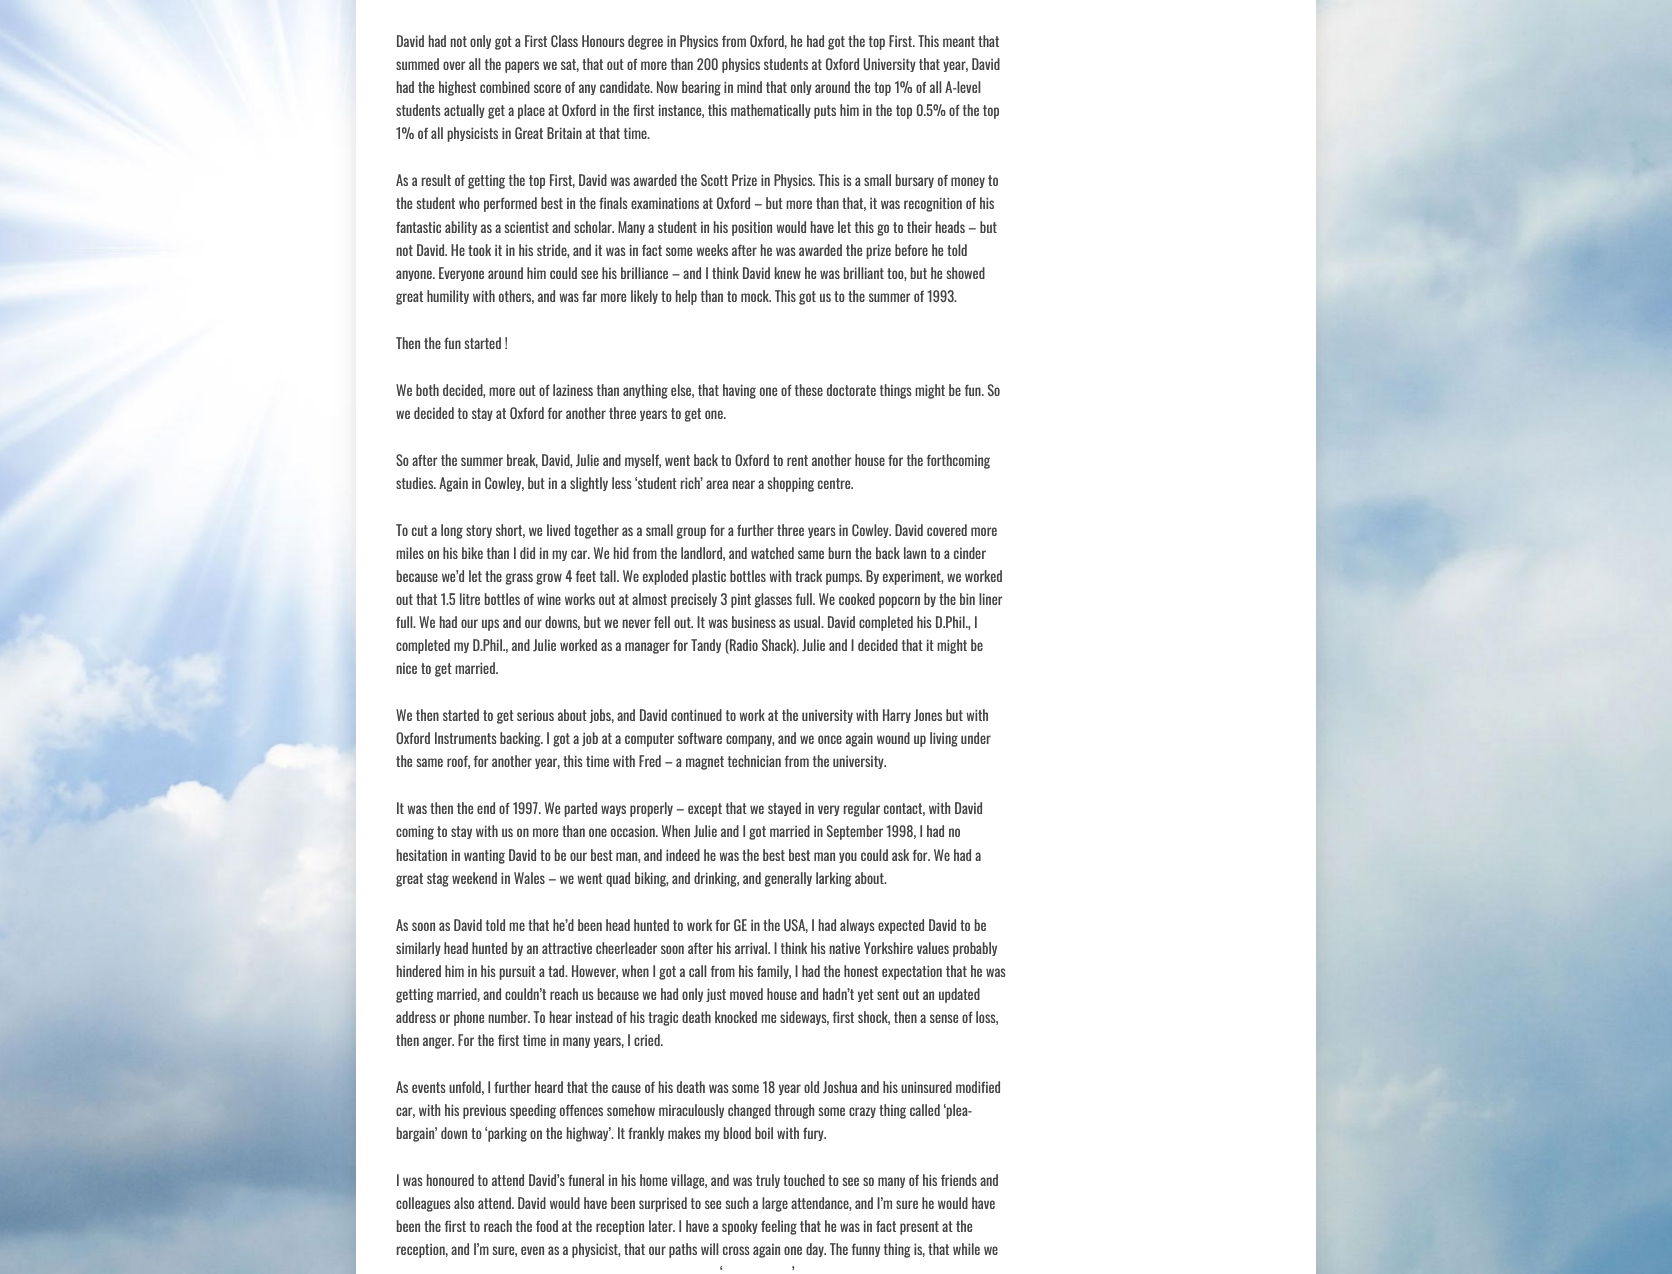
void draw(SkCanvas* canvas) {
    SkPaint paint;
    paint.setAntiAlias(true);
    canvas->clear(0xFFFFFFFF);
    canvas->drawImageRect(SkImages::DeferredFromEncodedData(SkData::MakeFromFileName("img1.png")), SkRect::MakeXYWH(0, 0, 1672, 1274), SkSamplingOptions());
    paint.setColor(0x1F000000);
    paint.setMaskFilter(SkMaskFilter::MakeBlur(kNormal_SkBlurStyle, 10));
    canvas->drawRoundRect(SkRect::MakeXYWH(356, -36, 960, 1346), 6, 6, paint);
    paint.setMaskFilter(nullptr);
    paint.setColor(0xFFFFFFFF);
    canvas->drawRect(SkRect::MakeXYWH(356, 0, 960, 1274), paint);
    SkFont font1(fontMgr->matchFamilyStyle("Oswald", SkFontStyle::Normal()), 14.4f);
    font1.setSubpixel(true);
    paint.setColor(0xFF444444);
    canvas->drawString("David had not only got a First Class Honours degree in Physics from Oxford, he had got the top First. This meant that", 396, 47, font1, paint);
    canvas->drawString("summed over all the papers we sat, that out of more than 200 physics students at Oxford University that year, David", 396, 70, font1, paint);
    canvas->drawString("had the highest combined score of any candidate. Now bearing in mind that only around the top 1% of all A-level", 396, 93, font1, paint);
    canvas->drawString("students actually get a place at Oxford in the first instance, this mathematically puts him in the top 0.5% of the top", 396, 116, font1, paint);
    canvas->drawString("1% of all physicists in Great Britain at that time.", 396, 139, font1, paint);
    canvas->drawString("As a result of getting the top First, David was awarded the Scott Prize in Physics. This is a small bursary of money to", 396, 186, font1, paint);
    canvas->drawString("the student who performed best in the finals examinations at Oxford – but more than that, it was recognition of his", 396, 209, font1, paint);
    canvas->drawString("fantastic ability as a scientist and scholar. Many a student in his position would have let this go to their heads – but", 396, 233, font1, paint);
    canvas->drawString("not David. He took it in his stride, and it was in fact some weeks after he was awarded the prize before he told", 396, 256, font1, paint);
    canvas->drawString("anyone. Everyone around him could see his brilliance – and I think David knew he was brilliant too, but he showed", 396, 279, font1, paint);
    canvas->drawString("great humility with others, and was far more likely to help than to mock. This got us to the summer of 1993.", 396, 302, font1, paint);
    canvas->drawString("Then the fun started !", 396, 349, font1, paint);
    canvas->drawString("We both decided, more out of laziness than anything else, that having one of these doctorate things might be fun. So", 396, 396, font1, paint);
    canvas->drawString("we decided to stay at Oxford for another three years to get one.", 396, 419, font1, paint);
    canvas->drawString("So after the summer break, David, Julie and myself, went back to Oxford to rent another house for the forthcoming", 396, 466, font1, paint);
    canvas->drawString("studies. Again in Cowley, but in a slightly less ‘student rich’ area near a shopping centre.", 396, 489, font1, paint);
    canvas->drawString("To cut a long story short, we lived together as a small group for a further three years in Cowley. David covered more", 396, 536, font1, paint);
    canvas->drawString("miles on his bike than I did in my car. We hid from the landlord, and watched same burn the back lawn to a cinder", 396, 559, font1, paint);
    canvas->drawString("because we’d let the grass grow 4 feet tall. We exploded plastic bottles with track pumps. By experiment, we worked", 396, 582, font1, paint);
    canvas->drawString("out that 1.5 litre bottles of wine works out at almost precisely 3 pint glasses full. We cooked popcorn by the bin liner", 396, 605, font1, paint);
    canvas->drawString("full. We had our ups and our downs, but we never fell out. It was business as usual. David completed his D.Phil., I", 396, 628, font1, paint);
    canvas->drawString("completed my D.Phil., and Julie worked as a manager for Tandy (Radio Shack). Julie and I decided that it might be", 396, 651, font1, paint);
    canvas->drawString("nice to get married.", 396, 674, font1, paint);
    canvas->drawString("We then started to get serious about jobs, and David continued to work at the university with Harry Jones but with", 396, 721, font1, paint);
    canvas->drawString("Oxford Instruments backing. I got a job at a computer software company, and we once again wound up living under", 396, 744, font1, paint);
    canvas->drawString("the same roof, for another year, this time with Fred – a magnet technician from the university.", 396, 767, font1, paint);
    canvas->drawString("It was then the end of 1997. We parted ways properly – except that we stayed in very regular contact, with David", 396, 814, font1, paint);
    canvas->drawString("coming to stay with us on more than one occasion. When Julie and I got married in September 1998, I had no", 396, 837, font1, paint);
    canvas->drawString("hesitation in wanting David to be our best man, and indeed he was the best best man you could ask for. We had a", 396, 861, font1, paint);
    canvas->drawString("great stag weekend in Wales – we went quad biking, and drinking, and generally larking about.", 396, 884, font1, paint);
    canvas->drawString("As soon as David told me that he’d been head hunted to work for GE in the USA, I had always expected David to be", 396, 931, font1, paint);
    canvas->drawString("similarly head hunted by an attractive cheerleader soon after his arrival. I think his native Yorkshire values probably", 396, 954, font1, paint);
    canvas->drawString("hindered him in his pursuit a tad. However, when I got a call from his family, I had the honest expectation that he was", 396, 977, font1, paint);
    canvas->drawString("getting married, and couldn’t reach us because we had only just moved house and hadn’t yet sent out an updated", 396, 1000, font1, paint);
    canvas->drawString("address or phone number. To hear instead of his tragic death knocked me sideways, first shock, then a sense of loss,", 396, 1023, font1, paint);
    canvas->drawString("then anger. For the first time in many years, I cried.", 396, 1046, font1, paint);
    canvas->drawString("As events unfold, I further heard that the cause of his death was some 18 year old Joshua and his uninsured modified", 396, 1093, font1, paint);
    canvas->drawString("car, with his previous speeding offences somehow miraculously changed through some crazy thing called ‘plea-", 396, 1116, font1, paint);
    canvas->drawString("bargain’ down to ‘parking on the highway’. It frankly makes my blood boil with fury.", 396, 1139, font1, paint);
    canvas->drawString("I was honoured to attend David’s funeral in his home village, and was truly touched to see so many of his friends and", 396, 1186, font1, paint);
    canvas->drawString("colleagues also attend. David would have been surprised to see such a large attendance, and I’m sure he would have", 396, 1209, font1, paint);
    canvas->drawString("been the first to reach the food at the reception later. I have a spooky feeling that he was in fact present at the", 396, 1232, font1, paint);
    canvas->drawString("reception, and I’m sure, even as a physicist, that our paths will cross again one day. The funny thing is, that while we", 396, 1255, font1, paint);
    canvas->drawString("‘", 720, 1278, font1, paint);
    canvas->drawString("’", 792, 1278, font1, paint);
}
